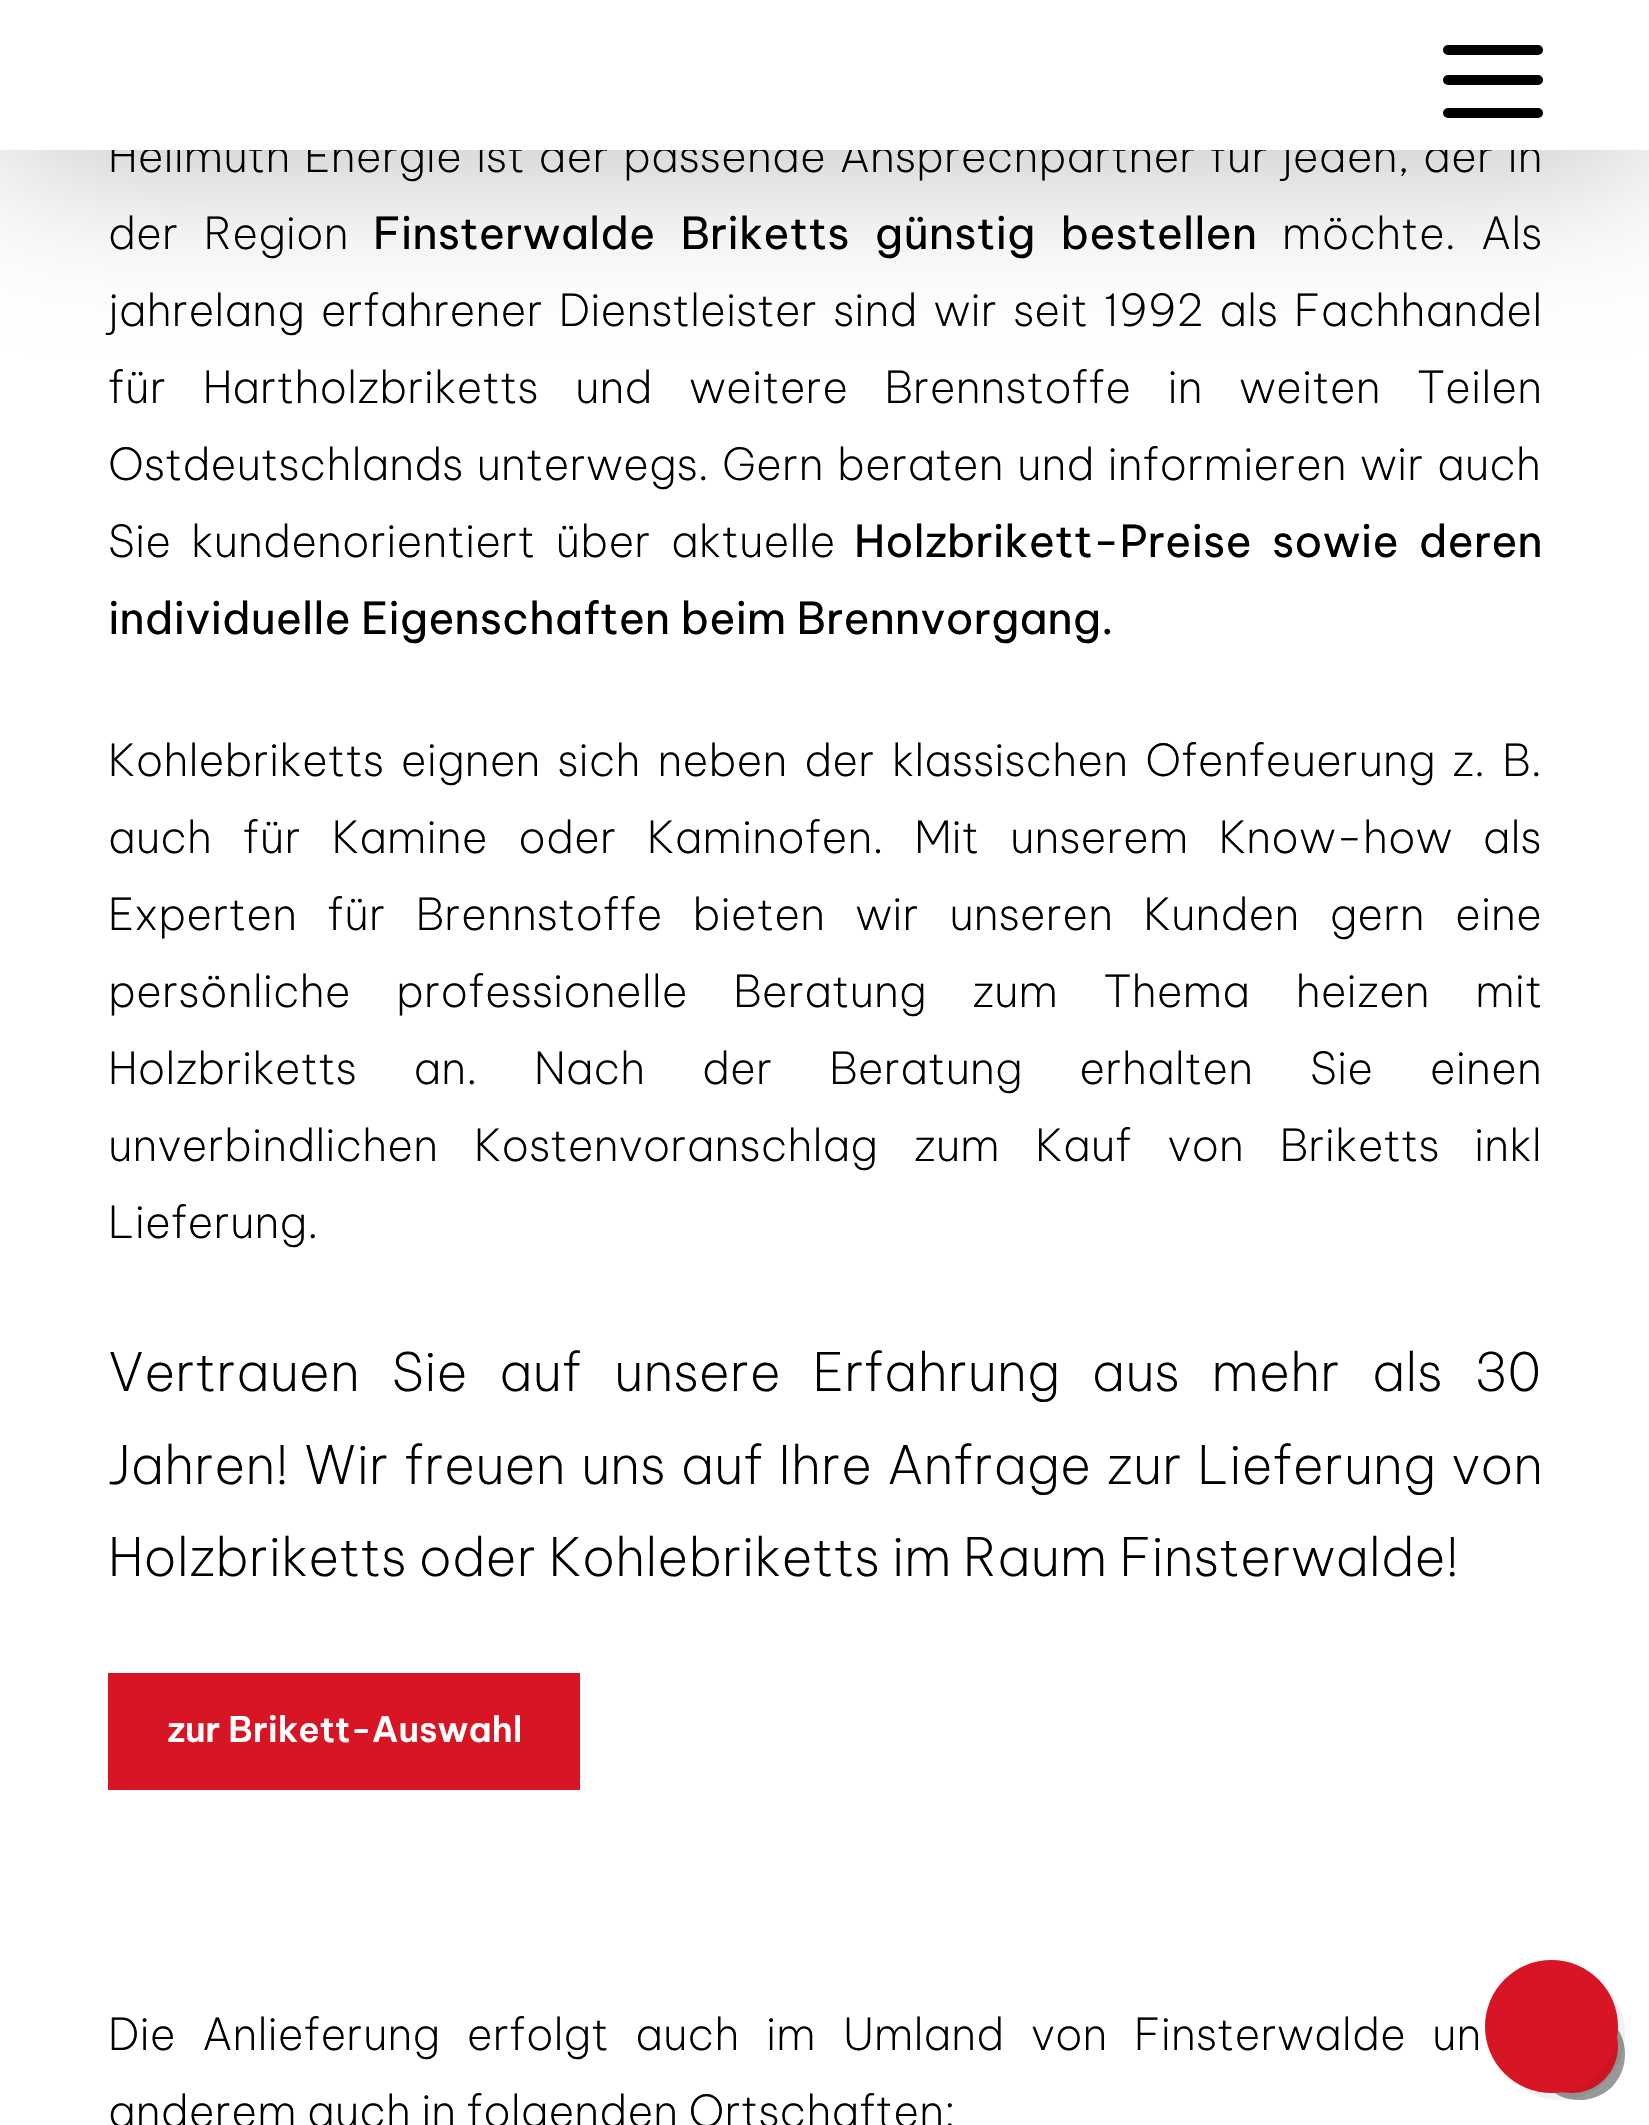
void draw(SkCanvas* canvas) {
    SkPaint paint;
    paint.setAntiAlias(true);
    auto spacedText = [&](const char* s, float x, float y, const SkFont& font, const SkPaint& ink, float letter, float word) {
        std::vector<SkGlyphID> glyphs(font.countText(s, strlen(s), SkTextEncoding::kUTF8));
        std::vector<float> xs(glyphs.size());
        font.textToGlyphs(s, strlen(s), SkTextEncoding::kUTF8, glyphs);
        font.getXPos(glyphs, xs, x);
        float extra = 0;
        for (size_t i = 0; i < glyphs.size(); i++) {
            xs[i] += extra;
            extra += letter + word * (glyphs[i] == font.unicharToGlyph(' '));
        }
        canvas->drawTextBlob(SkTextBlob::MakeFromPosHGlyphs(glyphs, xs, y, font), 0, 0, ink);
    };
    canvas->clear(0xFFFFFFFF);
    paint.setColor(0x4D000000);
    paint.setMaskFilter(SkMaskFilter::MakeBlur(kNormal_SkBlurStyle, 87.5f));
    canvas->drawRect(SkRect::MakeXYWH(0, 0, 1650, 150), paint);
    paint.setMaskFilter(nullptr);
    SkFont font1(fontMgr->matchFamilyStyle("Be Vietnam Pro", SkFontStyle(200, SkFontStyle::kNormal_Width, SkFontStyle::kUpright_Slant)), 44);
    font1.setSubpixel(true);
    paint.setColor(0xFF000000);
    spacedText("Hellmuth Energie ist der", 108, 172, font1, paint, 0, 3.75f);
    spacedText("passende Ansprechpartner für jeden, der in", 623, 172, font1, paint, 0, 3.75f);
    paint.setColor(0xFFFFFFFF);
    canvas->drawRect(SkRect::MakeXYWH(0, 0, 1649, 150), paint);
    paint.setColor(0xFF000000);
    canvas->drawRoundRect(SkRect::MakeXYWH(1443, 45, 100, 10), 5, 5, paint);
    canvas->drawRoundRect(SkRect::MakeXYWH(1443, 75, 100, 10), 5, 5, paint);
    canvas->drawRoundRect(SkRect::MakeXYWH(1443, 108, 100, 10), 5, 5, paint);
    spacedText("der Region", 108, 249, font1, paint, 0, 15);
    SkFont font2(fontMgr->matchFamilyStyle("Be Vietnam Pro", SkFontStyle::Normal()), 44);
    font2.setSubpixel(true);
    spacedText("Finsterwalde Briketts günstig bestellen", 373, 249, font2, paint, 0, 15);
    spacedText("möchte. Als", 1282, 249, font1, paint, 0, 15);
    spacedText("jahrelang erfahrener Dienstleister sind wir seit 1992 als Fachhandel", 108, 326, font1, paint, 0, 5.75f);
    spacedText("für Hartholzbriketts und weitere Brennstoffe in weiten Teilen", 108, 403, font1, paint, 0, 26.25f);
    spacedText("Ostdeutschlands unterwegs. Gern", 108, 480, font1, paint, 0, 3);
    spacedText("beraten und informieren wir auch", 837, 480, font1, paint, 0, 3);
    canvas->drawString("Sie", 108, 557, font1, paint);
    spacedText("kundenorientiert über aktuelle", 191, 557, font1, paint, 0, 10);
    spacedText("Holzbrikett-Preise sowie deren", 854, 557, font2, paint, 0, 10);
    canvas->drawString("individuelle Eigenschaften beim Brennvorgang.", 108, 634, font2, paint);
    spacedText("Kohlebriketts eignen sich neben der klassischen Ofenfeuerung", 108, 776, font1, paint, 0, 6.75f);
    spacedText("z. B.", 1452, 776, font1, paint, 0, 7);
    spacedText("auch für Kamine oder Kaminofen. Mit", 108, 853, font1, paint, 0, 20.5f);
    spacedText("unserem Know-how als", 1010, 853, font1, paint, 0, 20);
    spacedText("Experten für Brennstoffe bieten wir unseren Kunden gern eine", 108, 930, font1, paint, 0, 20);
    canvas->drawString("persönliche", 108, 1007, font1, paint);
    spacedText("professionelle Beratung zum Thema heizen mit", 396, 1007, font1, paint, 0, 35.25f);
    spacedText("Holzbriketts an. Nach der Beratung erhalten Sie einen", 108, 1084, font1, paint, 0, 46.5f);
    spacedText("unverbindlichen Kostenvoranschlag zum Kauf von Briketts", 108, 1161, font1, paint, 0, 25.5f);
    canvas->drawString("inkl", 1474, 1161, font1, paint);
    canvas->drawString("Lieferung.", 108, 1238, font1, paint);
    SkFont font3(fontMgr->matchFamilyStyle("Be Vietnam Pro", SkFontStyle(200, SkFontStyle::kNormal_Width, SkFontStyle::kUpright_Slant)), 52.8f);
    font3.setSubpixel(true);
    spacedText("Vertrauen Sie auf", 108, 1391, font3, paint, 0, 19.5f);
    spacedText("unsere Erfahrung aus mehr als 30", 614, 1391, font3, paint, 0, 19.5f);
    spacedText("Jahren! Wir freuen uns auf Ihre Anfrage zur Lieferung von", 108, 1484, font3, paint, 0, 3);
    canvas->drawString("Holzbriketts oder Kohlebriketts im", 108, 1576, font3, paint);
    canvas->drawString("Raum Finsterwalde!", 963, 1576, font3, paint);
    paint.setColor(0xFFD81525);
    canvas->drawRect(SkRect::MakeXYWH(108, 1673, 472, 117), paint);
    SkFont font4(fontMgr->matchFamilyStyle("Be Vietnam Pro", SkFontStyle(600, SkFontStyle::kNormal_Width, SkFontStyle::kUpright_Slant)), 35.25f);
    font4.setSubpixel(true);
    paint.setColor(0xFFFFFFFF);
    canvas->drawString("zur Brikett-Auswahl", 167, 1742, font4, paint);
    paint.setColor(0xFF000000);
    spacedText("Die Anlieferung erfolgt auch im", 108, 2050, font1, paint, 0, 16.5f);
    spacedText("Umland von Finsterwalde", 843, 2050, font1, paint, 0, 16.5f);
    canvas->drawString("un", 1432, 2050, font1, paint);
    canvas->drawString("anderem auch in folgenden Ortschaften:", 108, 2127, font1, paint);
    paint.setColor(0xFF999999);
    canvas->drawPath(SkPathBuilder().moveTo(1543, 2083).cubicTo(1560, 2104, 1592, 2106, 1612, 2087).cubicTo(1631, 2067, 1629, 2035, 1608, 2018).cubicTo(1622, 2037, 1620, 2063, 1604, 2079).cubicTo(1588, 2095, 1562, 2097, 1543, 2083).close().detach(), paint);
    paint.setColor(0xFFD81525);
    canvas->drawCircle(1571.5f, 2046.5f, 46.5f, paint);
    paint.setColor(0x0D000000);
    canvas->drawPath(SkPathBuilder().moveTo(1510, 2078).cubicTo(1535, 2106, 1579, 2108, 1606, 2081).cubicTo(1633, 2054, 1631, 2010, 1603, 1985).cubicTo(1624, 2010, 1622, 2049, 1598, 2073).cubicTo(1574, 2097, 1535, 2099, 1510, 2078).close().detach(), paint);
    paint.setColor(0xFFD81525);
    canvas->drawCircle(1551.5f, 2026.5f, 66.5f, paint);
}
